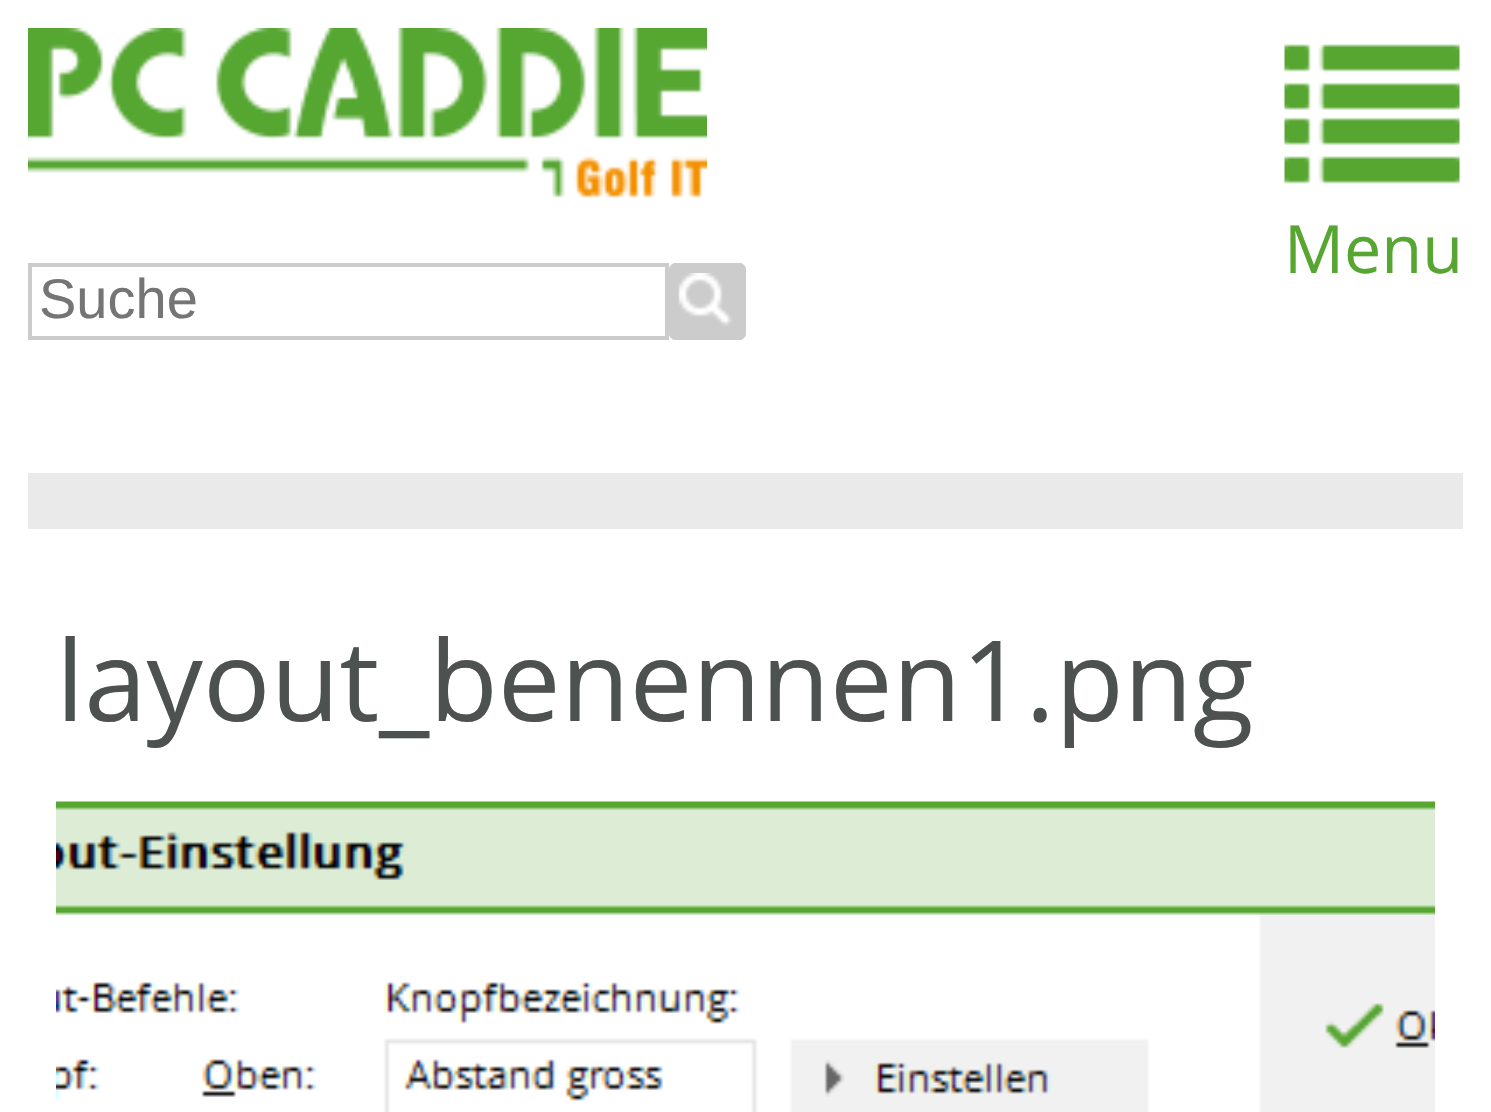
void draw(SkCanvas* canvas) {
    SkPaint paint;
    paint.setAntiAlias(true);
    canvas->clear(0xFFFFFFFF);
    canvas->drawImageRect(SkImages::DeferredFromEncodedData(SkData::MakeFromFileName("img1.png")), SkRect::MakeXYWH(28, 28, 679, 170), SkSamplingOptions());
    canvas->drawImageRect(SkImages::DeferredFromEncodedData(SkData::MakeFromFileName("img2.png")), SkRect::MakeXYWH(1284, 44, 176, 140), SkSamplingOptions());
    SkFont font1(fontMgr->matchFamilyStyle("Open Sans", SkFontStyle::Normal()), 66.5f);
    font1.setSubpixel(true);
    paint.setColor(0xFF57A632);
    canvas->drawString("Menu", 1284, 273, font1, paint);
    paint.setStyle(SkPaint::kStroke_Style);
    paint.setStrokeWidth(4);
    paint.setColor(0xFFCCCCCC);
    canvas->drawRect(SkRect::MakeXYWH(30, 265, 637, 73), paint);
    SkFont font2(fontMgr->matchFamilyStyle("Liberation Sans", SkFontStyle::Normal()), 56);
    font2.setSubpixel(true);
    paint.setStyle(SkPaint::kFill_Style);
    paint.setColor(0xFF757575);
    canvas->drawString("Suche", 39, 318, font2, paint);
    paint.setColor(0xFFCCCCCC);
    canvas->drawRoundRect(SkRect::MakeXYWH(669, 263, 77, 77), 7, 7, paint);
    canvas->drawImageRect(SkImages::DeferredFromEncodedData(SkData::MakeFromFileName("img3.png")), SkRect::MakeXYWH(678, 273, 54, 53), SkSamplingOptions());
    paint.setStyle(SkPaint::kStroke_Style);
    canvas->drawRoundRect(SkRect::MakeXYWH(671, 265, 73, 73), 5, 5, paint);
    paint.setStyle(SkPaint::kFill_Style);
    paint.setColor(0xFFEAEAEA);
    canvas->drawRect(SkRect::MakeXYWH(28, 473, 1435, 56), paint);
    SkFont font3(fontMgr->matchFamilyStyle("Open Sans", SkFontStyle::Normal()), 112);
    font3.setSubpixel(true);
    paint.setColor(0xFF4D514F);
    canvas->drawString("layout_benennen1.png", 56, 721, font3, paint);
    canvas->drawImageRect(SkImages::DeferredFromEncodedData(SkData::MakeFromFileName("img4.png")), SkRect::MakeXYWH(56, 801, 1379, 311), SkSamplingOptions());
}
